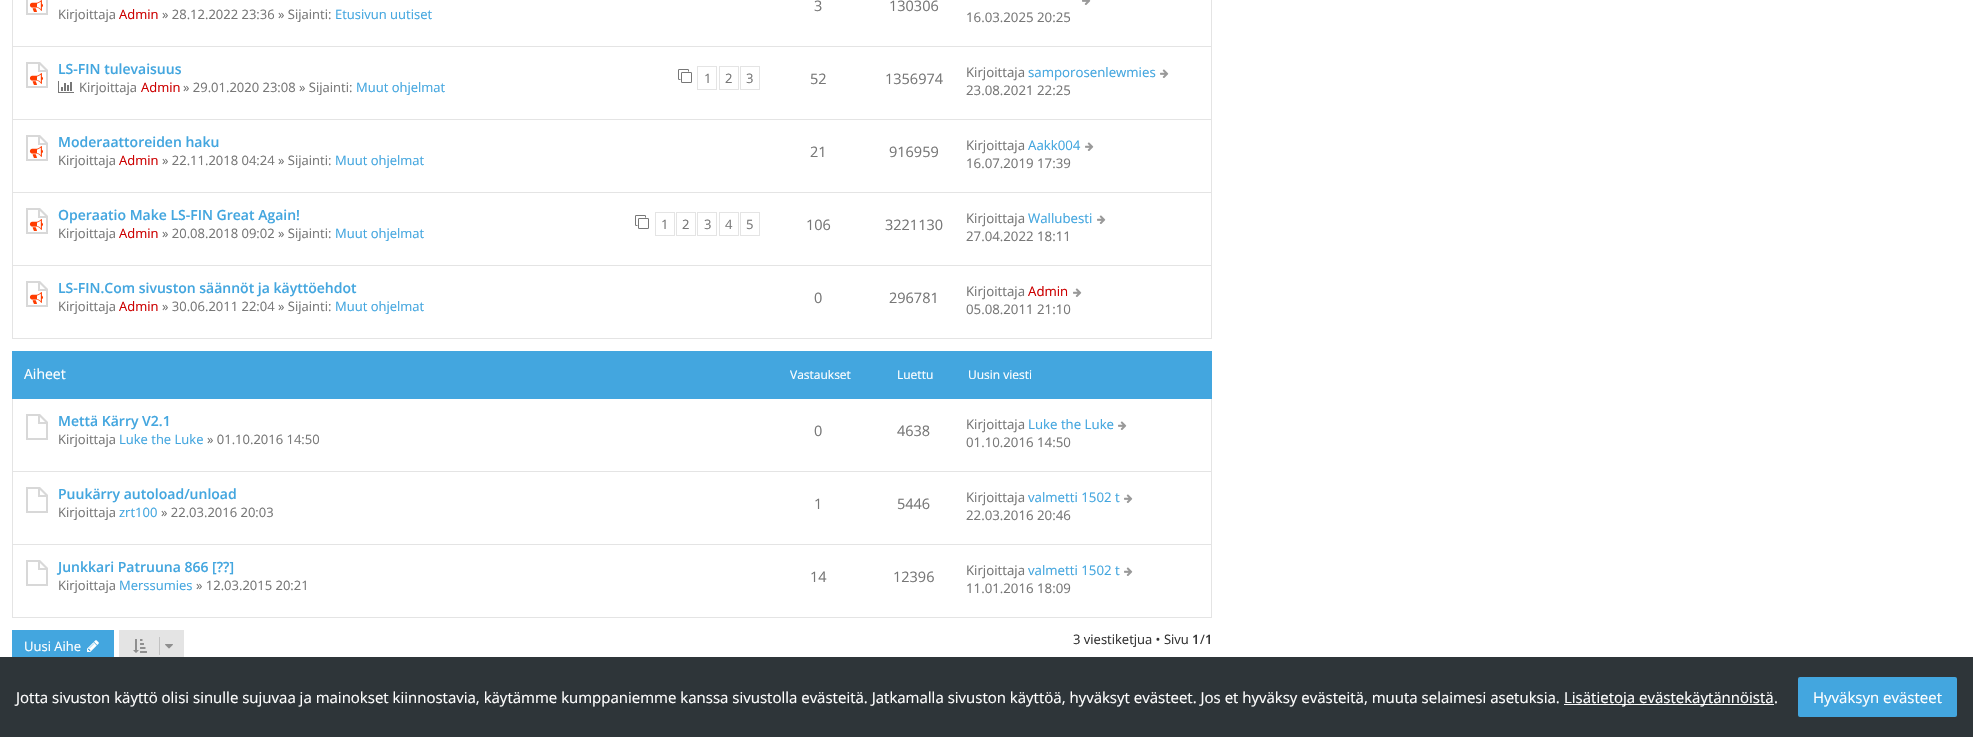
void draw(SkCanvas* canvas) {
    SkPaint paint;
    paint.setAntiAlias(true);
    canvas->clear(0xFFFFFFFF);
    paint.setColor(0xFFE4E4E4);
    canvas->drawRect(SkRect::MakeXYWH(1211, 0, 1, 339), paint);
    canvas->drawRect(SkRect::MakeXYWH(12, 46, 1200, 1), paint);
    canvas->drawRect(SkRect::MakeXYWH(12, 0, 1, 47), paint);
    canvas->drawImageRect(SkImages::DeferredFromEncodedData(SkData::MakeFromFileName("img1.png")), SkRect::MakeXYWH(26, 0, 22, 15), SkSamplingOptions());
    SkFont font1(fontMgr->matchFamilyStyle("Open Sans", SkFontStyle::Normal()), 14.5f);
    font1.setSubpixel(true);
    paint.setColor(0xFF777777);
    canvas->drawString("3", 814, 11, font1, paint);
    canvas->drawString("130306", 889, 11, font1, paint);
    SkFont font2(fontMgr->matchFamilyStyle("Open Sans", SkFontStyle::Normal()), 13);
    font2.setSubpixel(true);
    canvas->drawString("Kirjoittaja", 58, 19, font2, paint);
    paint.setColor(0xFFCC0000);
    canvas->drawString("Admin", 119, 19, font2, paint);
    paint.setColor(0xFF777777);
    canvas->drawString("» 28.12.2022 23:36 » Sijainti:", 162, 19, font2, paint);
    paint.setColor(0xFF43A6DF);
    canvas->drawString("Etusivun uutiset", 335, 19, font2, paint);
    canvas->drawImageRect(SkImages::DeferredFromEncodedData(SkData::MakeFromFileName("img2.png")), SkRect::MakeXYWH(1082, 0, 9, 5), SkSamplingOptions());
    SkFont font3(fontMgr->matchFamilyStyle("Open Sans", SkFontStyle::Normal()), 13.25f);
    font3.setSubpixel(true);
    paint.setColor(0xFF777777);
    canvas->drawString("16.03.2025 20:25", 966, 22, font3, paint);
    paint.setColor(0xFFE4E4E4);
    canvas->drawRect(SkRect::MakeXYWH(12, 119, 1200, 1), paint);
    canvas->drawRect(SkRect::MakeXYWH(12, 47, 1, 73), paint);
    canvas->drawImageRect(SkImages::DeferredFromEncodedData(SkData::MakeFromFileName("img3.png")), SkRect::MakeXYWH(26, 62, 22, 26), SkSamplingOptions());
    SkFont font4(fontMgr->matchFamilyStyle("Open Sans", SkFontStyle(600, SkFontStyle::kNormal_Width, SkFontStyle::kUpright_Slant)), 14);
    font4.setSubpixel(true);
    paint.setColor(0xFF43A6DF);
    canvas->drawString("LS-FIN tulevaisuus", 58, 74, font4, paint);
    canvas->drawImageRect(SkImages::DeferredFromEncodedData(SkData::MakeFromFileName("img4.png")), SkRect::MakeXYWH(678, 69, 14, 14), SkSamplingOptions());
    paint.setStyle(SkPaint::kStroke_Style);
    paint.setStrokeWidth(1);
    paint.setColor(0xFFE4E4E4);
    canvas->drawRect(SkRect::MakeXYWH(697.5f, 66.5f, 19, 23), paint);
    paint.setStyle(SkPaint::kFill_Style);
    paint.setColor(0xFF777777);
    canvas->drawString("1", 704, 83, font2, paint);
    paint.setStyle(SkPaint::kStroke_Style);
    paint.setColor(0xFFE4E4E4);
    canvas->drawRect(SkRect::MakeXYWH(719.5f, 66.5f, 19, 23), paint);
    paint.setStyle(SkPaint::kFill_Style);
    paint.setColor(0xFF777777);
    canvas->drawString("2", 725, 83, font2, paint);
    paint.setStyle(SkPaint::kStroke_Style);
    paint.setColor(0xFFE4E4E4);
    canvas->drawRect(SkRect::MakeXYWH(740.5f, 66.5f, 19, 23), paint);
    paint.setStyle(SkPaint::kFill_Style);
    paint.setColor(0xFF777777);
    canvas->drawString("3", 746, 83, font2, paint);
    canvas->drawImageRect(SkImages::DeferredFromEncodedData(SkData::MakeFromFileName("img5.png")), SkRect::MakeXYWH(58, 81, 16, 12), SkSamplingOptions());
    canvas->drawString("Kirjoittaja", 79, 92, font2, paint);
    paint.setColor(0xFFCC0000);
    canvas->drawString("Admin", 141, 92, font2, paint);
    paint.setColor(0xFF777777);
    canvas->drawString("» 29.01.2020 23:08 » Sijainti:", 183, 92, font2, paint);
    paint.setColor(0xFF43A6DF);
    canvas->drawString("Muut ohjelmat", 356, 92, font2, paint);
    paint.setColor(0xFF777777);
    canvas->drawString("52", 810, 84, font1, paint);
    canvas->drawString("1356974", 885, 84, font1, paint);
    canvas->drawString("Kirjoittaja", 966, 77, font3, paint);
    paint.setColor(0xFF43A6DF);
    canvas->drawString("samporosenlewmies", 1028, 77, font3, paint);
    canvas->drawImageRect(SkImages::DeferredFromEncodedData(SkData::MakeFromFileName("img6.png")), SkRect::MakeXYWH(1160, 69, 9, 9), SkSamplingOptions());
    paint.setColor(0xFF777777);
    canvas->drawString("23.08.2021 22:25", 966, 95, font3, paint);
    paint.setColor(0xFFE4E4E4);
    canvas->drawRect(SkRect::MakeXYWH(12, 192, 1200, 1), paint);
    canvas->drawRect(SkRect::MakeXYWH(12, 120, 1, 73), paint);
    canvas->drawImageRect(SkImages::DeferredFromEncodedData(SkData::MakeFromFileName("img3.png")), SkRect::MakeXYWH(26, 135, 22, 26), SkSamplingOptions());
    paint.setColor(0xFF43A6DF);
    canvas->drawString("Moderaattoreiden haku", 58, 147, font4, paint);
    paint.setColor(0xFF777777);
    canvas->drawString("Kirjoittaja", 58, 165, font2, paint);
    paint.setColor(0xFFCC0000);
    canvas->drawString("Admin", 119, 165, font2, paint);
    paint.setColor(0xFF777777);
    canvas->drawString("» 22.11.2018 04:24 » Sijainti:", 162, 165, font2, paint);
    paint.setColor(0xFF43A6DF);
    canvas->drawString("Muut ohjelmat", 335, 165, font2, paint);
    paint.setColor(0xFF777777);
    canvas->drawString("21", 810, 157, font1, paint);
    canvas->drawString("916959", 889, 157, font1, paint);
    canvas->drawString("Kirjoittaja", 966, 150, font3, paint);
    paint.setColor(0xFF43A6DF);
    canvas->drawString("Aakk004", 1028, 150, font3, paint);
    canvas->drawImageRect(SkImages::DeferredFromEncodedData(SkData::MakeFromFileName("img6.png")), SkRect::MakeXYWH(1085, 142, 9, 9), SkSamplingOptions());
    paint.setColor(0xFF777777);
    canvas->drawString("16.07.2019 17:39", 966, 168, font3, paint);
    paint.setColor(0xFFE4E4E4);
    canvas->drawRect(SkRect::MakeXYWH(12, 265, 1200, 1), paint);
    canvas->drawRect(SkRect::MakeXYWH(12, 193, 1, 73), paint);
    canvas->drawImageRect(SkImages::DeferredFromEncodedData(SkData::MakeFromFileName("img3.png")), SkRect::MakeXYWH(26, 208, 22, 26), SkSamplingOptions());
    paint.setColor(0xFF43A6DF);
    canvas->drawString("Operaatio Make LS-FIN Great Again!", 58, 220, font4, paint);
    canvas->drawImageRect(SkImages::DeferredFromEncodedData(SkData::MakeFromFileName("img4.png")), SkRect::MakeXYWH(635, 215, 14, 14), SkSamplingOptions());
    paint.setStyle(SkPaint::kStroke_Style);
    paint.setColor(0xFFE4E4E4);
    canvas->drawRect(SkRect::MakeXYWH(655.5f, 212.5f, 19, 23), paint);
    paint.setStyle(SkPaint::kFill_Style);
    paint.setColor(0xFF777777);
    canvas->drawString("1", 661, 229, font2, paint);
    paint.setStyle(SkPaint::kStroke_Style);
    paint.setColor(0xFFE4E4E4);
    canvas->drawRect(SkRect::MakeXYWH(676.5f, 212.5f, 19, 23), paint);
    paint.setStyle(SkPaint::kFill_Style);
    paint.setColor(0xFF777777);
    canvas->drawString("2", 682, 229, font2, paint);
    paint.setStyle(SkPaint::kStroke_Style);
    paint.setColor(0xFFE4E4E4);
    canvas->drawRect(SkRect::MakeXYWH(697.5f, 212.5f, 19, 23), paint);
    paint.setStyle(SkPaint::kFill_Style);
    paint.setColor(0xFF777777);
    canvas->drawString("3", 704, 229, font2, paint);
    paint.setStyle(SkPaint::kStroke_Style);
    paint.setColor(0xFFE4E4E4);
    canvas->drawRect(SkRect::MakeXYWH(719.5f, 212.5f, 19, 23), paint);
    paint.setStyle(SkPaint::kFill_Style);
    paint.setColor(0xFF777777);
    canvas->drawString("4", 725, 229, font2, paint);
    paint.setStyle(SkPaint::kStroke_Style);
    paint.setColor(0xFFE4E4E4);
    canvas->drawRect(SkRect::MakeXYWH(740.5f, 212.5f, 19, 23), paint);
    paint.setStyle(SkPaint::kFill_Style);
    paint.setColor(0xFF777777);
    canvas->drawString("5", 746, 229, font2, paint);
    canvas->drawString("Kirjoittaja", 58, 238, font2, paint);
    paint.setColor(0xFFCC0000);
    canvas->drawString("Admin", 119, 238, font2, paint);
    paint.setColor(0xFF777777);
    canvas->drawString("» 20.08.2018 09:02 » Sijainti:", 162, 238, font2, paint);
    paint.setColor(0xFF43A6DF);
    canvas->drawString("Muut ohjelmat", 335, 238, font2, paint);
    paint.setColor(0xFF777777);
    canvas->drawString("106", 806, 230, font1, paint);
    canvas->drawString("3221130", 885, 230, font1, paint);
    canvas->drawString("Kirjoittaja", 966, 223, font3, paint);
    paint.setColor(0xFF43A6DF);
    canvas->drawString("Wallubesti", 1028, 223, font3, paint);
    canvas->drawImageRect(SkImages::DeferredFromEncodedData(SkData::MakeFromFileName("img6.png")), SkRect::MakeXYWH(1097, 215, 9, 9), SkSamplingOptions());
    paint.setColor(0xFF777777);
    canvas->drawString("27.04.2022 18:11", 966, 241, font3, paint);
    paint.setColor(0xFFE4E4E4);
    canvas->drawRect(SkRect::MakeXYWH(12, 338, 1200, 1), paint);
    canvas->drawRect(SkRect::MakeXYWH(12, 266, 1, 73), paint);
    canvas->drawImageRect(SkImages::DeferredFromEncodedData(SkData::MakeFromFileName("img3.png")), SkRect::MakeXYWH(26, 281, 22, 26), SkSamplingOptions());
    paint.setColor(0xFF43A6DF);
    canvas->drawString("LS-FIN.Com sivuston säännöt ja käyttöehdot", 58, 293, font4, paint);
    paint.setColor(0xFF777777);
    canvas->drawString("Kirjoittaja", 58, 311, font2, paint);
    paint.setColor(0xFFCC0000);
    canvas->drawString("Admin", 119, 311, font2, paint);
    paint.setColor(0xFF777777);
    canvas->drawString("» 30.06.2011 22:04 » Sijainti:", 162, 311, font2, paint);
    paint.setColor(0xFF43A6DF);
    canvas->drawString("Muut ohjelmat", 335, 311, font2, paint);
    paint.setColor(0xFF777777);
    canvas->drawString("0", 814, 303, font1, paint);
    canvas->drawString("296781", 889, 303, font1, paint);
    canvas->drawString("Kirjoittaja", 966, 296, font3, paint);
    paint.setColor(0xFFCC0000);
    canvas->drawString("Admin", 1028, 296, font3, paint);
    canvas->drawImageRect(SkImages::DeferredFromEncodedData(SkData::MakeFromFileName("img6.png")), SkRect::MakeXYWH(1073, 288, 9, 9), SkSamplingOptions());
    paint.setColor(0xFF777777);
    canvas->drawString("05.08.2011 21:10", 966, 314, font3, paint);
    paint.setColor(0xFF43A6DF);
    canvas->drawRect(SkRect::MakeXYWH(12, 351, 1200, 48), paint);
    SkFont font5(fontMgr->matchFamilyStyle("Open Sans", SkFontStyle::Normal()), 14);
    font5.setSubpixel(true);
    paint.setColor(0xFFFFFFFF);
    canvas->drawString("Aiheet", 24, 379, font5, paint);
    SkFont font6(fontMgr->matchFamilyStyle("Open Sans", SkFontStyle::Normal()), 12);
    font6.setSubpixel(true);
    canvas->drawString("Vastaukset", 790, 379, font6, paint);
    canvas->drawString("Luettu", 897, 379, font6, paint);
    canvas->drawString("Uusin viesti", 968, 379, font6, paint);
    paint.setColor(0xFFE4E4E4);
    canvas->drawRect(SkRect::MakeXYWH(1211, 399, 1, 219), paint);
    canvas->drawRect(SkRect::MakeXYWH(12, 471, 1200, 1), paint);
    canvas->drawRect(SkRect::MakeXYWH(12, 399, 1, 73), paint);
    canvas->drawImageRect(SkImages::DeferredFromEncodedData(SkData::MakeFromFileName("img7.png")), SkRect::MakeXYWH(26, 414, 22, 26), SkSamplingOptions());
    paint.setColor(0xFF43A6DF);
    canvas->drawString("Mettä Kärry V2.1", 58, 426, font4, paint);
    paint.setColor(0xFF777777);
    canvas->drawString("Kirjoittaja", 58, 444, font2, paint);
    paint.setColor(0xFF43A6DF);
    canvas->drawString("Luke the Luke", 119, 444, font2, paint);
    paint.setColor(0xFF777777);
    canvas->drawString("» 01.10.2016 14:50", 207, 444, font2, paint);
    canvas->drawString("0", 814, 436, font1, paint);
    canvas->drawString("4638", 897, 436, font1, paint);
    canvas->drawString("Kirjoittaja", 966, 429, font3, paint);
    paint.setColor(0xFF43A6DF);
    canvas->drawString("Luke the Luke", 1028, 429, font3, paint);
    canvas->drawImageRect(SkImages::DeferredFromEncodedData(SkData::MakeFromFileName("img6.png")), SkRect::MakeXYWH(1118, 421, 9, 9), SkSamplingOptions());
    paint.setColor(0xFF777777);
    canvas->drawString("01.10.2016 14:50", 966, 447, font3, paint);
    paint.setColor(0xFFE4E4E4);
    canvas->drawRect(SkRect::MakeXYWH(12, 544, 1200, 1), paint);
    canvas->drawRect(SkRect::MakeXYWH(12, 472, 1, 73), paint);
    canvas->drawImageRect(SkImages::DeferredFromEncodedData(SkData::MakeFromFileName("img7.png")), SkRect::MakeXYWH(26, 487, 22, 26), SkSamplingOptions());
    paint.setColor(0xFF43A6DF);
    canvas->drawString("Puukärry autoload/unload", 58, 499, font4, paint);
    paint.setColor(0xFF777777);
    canvas->drawString("Kirjoittaja", 58, 517, font2, paint);
    paint.setColor(0xFF43A6DF);
    canvas->drawString("zrt100", 119, 517, font2, paint);
    paint.setColor(0xFF777777);
    canvas->drawString("» 22.03.2016 20:03", 161, 517, font2, paint);
    canvas->drawString("1", 814, 509, font1, paint);
    canvas->drawString("5446", 897, 509, font1, paint);
    canvas->drawString("Kirjoittaja", 966, 502, font3, paint);
    paint.setColor(0xFF43A6DF);
    canvas->drawString("valmetti 1502 t", 1028, 502, font3, paint);
    canvas->drawImageRect(SkImages::DeferredFromEncodedData(SkData::MakeFromFileName("img6.png")), SkRect::MakeXYWH(1124, 494, 9, 9), SkSamplingOptions());
    paint.setColor(0xFF777777);
    canvas->drawString("22.03.2016 20:46", 966, 520, font3, paint);
    paint.setColor(0xFFE4E4E4);
    canvas->drawRect(SkRect::MakeXYWH(12, 617, 1200, 1), paint);
    canvas->drawRect(SkRect::MakeXYWH(12, 545, 1, 73), paint);
    canvas->drawImageRect(SkImages::DeferredFromEncodedData(SkData::MakeFromFileName("img7.png")), SkRect::MakeXYWH(26, 560, 22, 26), SkSamplingOptions());
    paint.setColor(0xFF43A6DF);
    canvas->drawString("Junkkari Patruuna 866 [?\077]", 58, 572, font4, paint);
    paint.setColor(0xFF777777);
    canvas->drawString("Kirjoittaja", 58, 590, font2, paint);
    paint.setColor(0xFF43A6DF);
    canvas->drawString("Merssumies", 119, 590, font2, paint);
    paint.setColor(0xFF777777);
    canvas->drawString("» 12.03.2015 20:21", 196, 590, font2, paint);
    canvas->drawString("14", 810, 582, font1, paint);
    canvas->drawString("12396", 893, 582, font1, paint);
    canvas->drawString("Kirjoittaja", 966, 575, font3, paint);
    paint.setColor(0xFF43A6DF);
    canvas->drawString("valmetti 1502 t", 1028, 575, font3, paint);
    canvas->drawImageRect(SkImages::DeferredFromEncodedData(SkData::MakeFromFileName("img6.png")), SkRect::MakeXYWH(1124, 567, 9, 9), SkSamplingOptions());
    paint.setColor(0xFF777777);
    canvas->drawString("11.01.2016 18:09", 966, 593, font3, paint);
    paint.setColor(0xFF43A6DF);
    canvas->drawRect(SkRect::MakeXYWH(12, 630, 102, 27), paint);
    paint.setColor(0xFFFFFFFF);
    canvas->drawString("Uusi Aihe", 24, 651, font2, paint);
    canvas->drawImageRect(SkImages::DeferredFromEncodedData(SkData::MakeFromFileName("img8.png")), SkRect::MakeXYWH(87, 640, 12, 12), SkSamplingOptions());
    paint.setColor(0xFFE4E4E4);
    canvas->drawRect(SkRect::MakeXYWH(119, 630, 65, 27), paint);
    canvas->drawImageRect(SkImages::DeferredFromEncodedData(SkData::MakeFromFileName("img9.png")), SkRect::MakeXYWH(133, 639, 14, 14), SkSamplingOptions());
    paint.setColor(0xFFC2C2C2);
    canvas->drawRect(SkRect::MakeXYWH(159, 637, 1, 18), paint);
    canvas->drawImageRect(SkImages::DeferredFromEncodedData(SkData::MakeFromFileName("img10.png")), SkRect::MakeXYWH(165, 644, 8, 5), SkSamplingOptions());
    paint.setColor(0xFF333333);
    canvas->drawString("3 viestiketjua • Sivu", 1073, 644, font2, paint);
    SkFont font7(fontMgr->matchFamilyStyle("Open Sans", SkFontStyle(600, SkFontStyle::kNormal_Width, SkFontStyle::kUpright_Slant)), 13);
    font7.setSubpixel(true);
    canvas->drawString("1", 1192, 644, font7, paint);
    canvas->drawString("/", 1200, 644, font2, paint);
    canvas->drawString("1", 1205, 644, font7, paint);
    paint.setColor(0xFF2E3539);
    canvas->drawRect(SkRect::MakeXYWH(0, 657, 1973, 80), paint);
    SkFont font8(fontMgr->matchFamilyStyle("Open Sans", SkFontStyle::Normal()), 15);
    font8.setSubpixel(true);
    paint.setColor(0xFFFFFFFF);
    canvas->drawString("Jotta sivuston käyttö olisi sinulle sujuvaa ja mainokset kiinnostavia, käytämme kumppaniemme kanssa sivustolla evästeitä. Jatkamalla sivuston käyttöä, hyväksyt evästeet. Jos et hyväksy evästeitä, muuta selaimesi asetuksia.", 16, 703, font8, paint);
    paint.setColor(0xFFFAFAFA);
    canvas->drawRect(SkRect::MakeXYWH(1564, 704, 210, 1), paint);
    paint.setColor(0xFFFFFFFF);
    canvas->drawString("Lisätietoja evästekäytännöistä", 1564, 703, font8, paint);
    canvas->drawString(".", 1774, 703, font8, paint);
    paint.setColor(0xFF43A6DF);
    canvas->drawRoundRect(SkRect::MakeXYWH(1798, 677, 159, 40), 2, 2, paint);
    paint.setColor(0xFFFFFFFF);
    canvas->drawString("Hyväksyn evästeet", 1813, 703, font8, paint);
}
